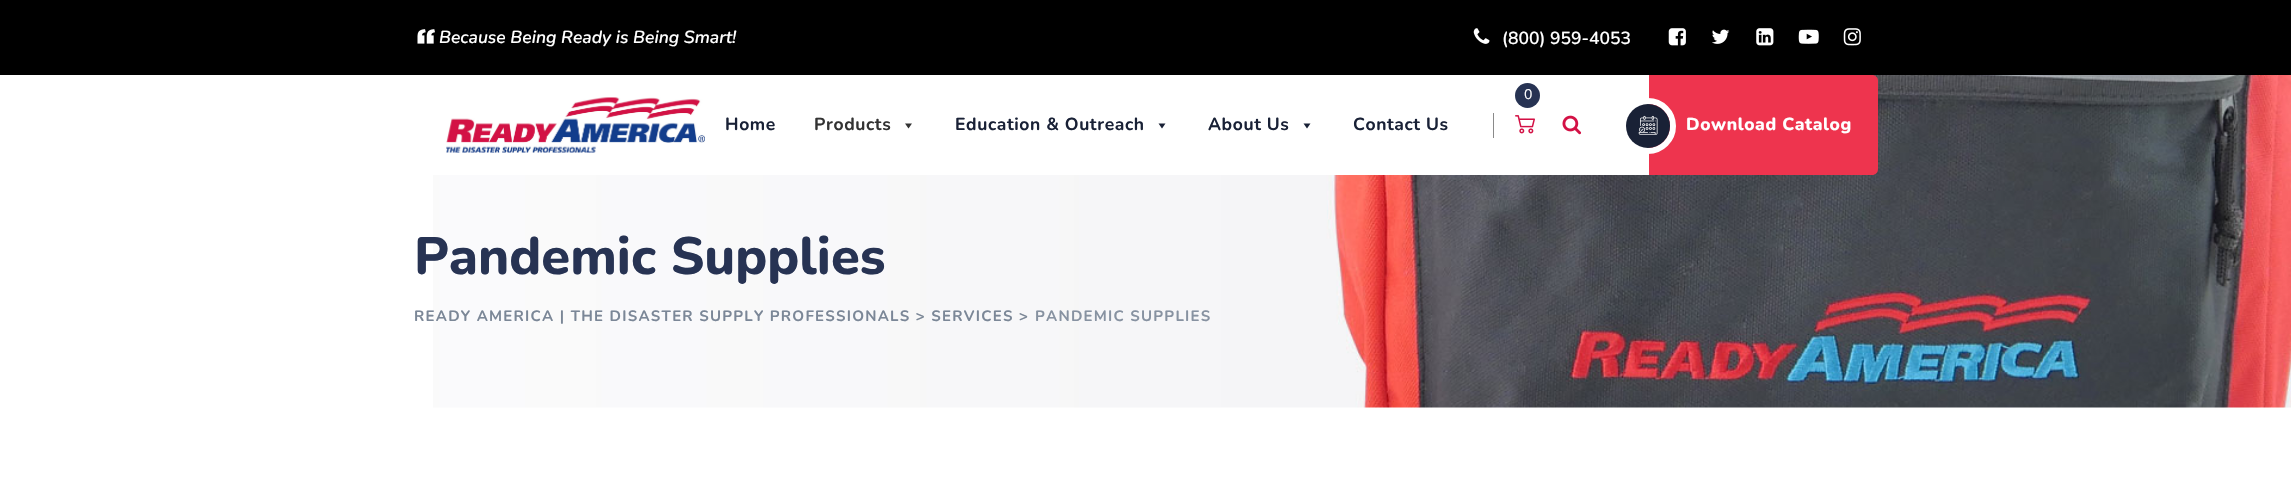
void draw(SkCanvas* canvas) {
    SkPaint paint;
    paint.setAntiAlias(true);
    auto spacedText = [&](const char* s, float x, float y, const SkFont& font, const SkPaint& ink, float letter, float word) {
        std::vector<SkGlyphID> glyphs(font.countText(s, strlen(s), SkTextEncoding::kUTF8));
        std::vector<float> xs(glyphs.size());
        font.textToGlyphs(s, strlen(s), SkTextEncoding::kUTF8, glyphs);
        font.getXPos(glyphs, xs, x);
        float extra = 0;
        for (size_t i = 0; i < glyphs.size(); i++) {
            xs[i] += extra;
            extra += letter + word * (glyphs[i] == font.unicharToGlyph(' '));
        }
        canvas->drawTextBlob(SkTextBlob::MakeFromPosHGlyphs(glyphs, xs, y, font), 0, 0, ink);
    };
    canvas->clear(0xFFFFFFFF);
    paint.setColor(0xFF000000);
    canvas->drawRect(SkRect::MakeXYWH(0, 0, 2291, 75), paint);
    canvas->drawImageRect(SkImages::DeferredFromEncodedData(SkData::MakeFromFileName("img1.png")), SkRect::MakeXYWH(417, 29, 18, 15), SkSamplingOptions());
    SkFont font1(fontMgr->matchFamilyStyle("Nunito", SkFontStyle(600, SkFontStyle::kNormal_Width, SkFontStyle::kItalic_Slant)), 17.5f);
    font1.setSubpixel(true);
    paint.setColor(0xFFFFFFFF);
    canvas->drawString("Because Being Ready is Being Smart!", 439, 43, font1, paint);
    canvas->drawImageRect(SkImages::DeferredFromEncodedData(SkData::MakeFromFileName("img2.png")), SkRect::MakeXYWH(1473, 28, 17, 16), SkSamplingOptions());
    SkFont font2(fontMgr->matchFamilyStyle("Nunito", SkFontStyle(600, SkFontStyle::kNormal_Width, SkFontStyle::kUpright_Slant)), 17.5f);
    font2.setSubpixel(true);
    canvas->drawString("(800) 959-4053", 1502, 44, font2, paint);
    canvas->drawImageRect(SkImages::DeferredFromEncodedData(SkData::MakeFromFileName("img3.png")), SkRect::MakeXYWH(1668, 28, 18, 18), SkSamplingOptions());
    canvas->drawImageRect(SkImages::DeferredFromEncodedData(SkData::MakeFromFileName("img4.png")), SkRect::MakeXYWH(1712, 29, 18, 15), SkSamplingOptions());
    canvas->drawImageRect(SkImages::DeferredFromEncodedData(SkData::MakeFromFileName("img5.png")), SkRect::MakeXYWH(1756, 28, 18, 18), SkSamplingOptions());
    canvas->drawImageRect(SkImages::DeferredFromEncodedData(SkData::MakeFromFileName("img6.png")), SkRect::MakeXYWH(1798, 29, 21, 15), SkSamplingOptions());
    canvas->drawImageRect(SkImages::DeferredFromEncodedData(SkData::MakeFromFileName("img7.png")), SkRect::MakeXYWH(1843, 28, 18, 18), SkSamplingOptions());
    canvas->drawImageRect(SkImages::DeferredFromEncodedData(SkData::MakeFromFileName("img12.png")), SkRect::MakeXYWH(433, 75, 1858, 333), SkSamplingOptions());
    canvas->drawPath(SkPathBuilder().moveTo(421, 75).lineTo(1649, 75).lineTo(1649, 175).lineTo(421, 175).cubicTo(417.5f, 175, 415, 172.5f, 415, 169).lineTo(415, 81).cubicTo(415, 77.5f, 417.5f, 75, 421, 75).close().detach(), paint);
    paint.setColor(0xFF273353);
    canvas->drawCircle(1527.5f, 95.5f, 12.5f, paint);
    SkFont font3(fontMgr->matchFamilyStyle("Nunito", SkFontStyle::Normal()), 14);
    font3.setSubpixel(true);
    paint.setColor(0xFFFFFFFF);
    canvas->drawString("0", 1524, 99, font3, paint);
    canvas->drawImageRect(SkImages::DeferredFromEncodedData(SkData::MakeFromFileName("img8.png")), SkRect::MakeXYWH(1515, 115, 20, 19), SkSamplingOptions());
    paint.setColor(0xFF8A8A8A);
    canvas->drawRect(SkRect::MakeXYWH(1493, 113, 1, 25), paint);
    canvas->drawImageRect(SkImages::DeferredFromEncodedData(SkData::MakeFromFileName("img9.png")), SkRect::MakeXYWH(446, 97, 259, 56), SkSamplingOptions());
    SkFont font4(fontMgr->matchFamilyStyle("Nunito", SkFontStyle::Bold()), 17.5f);
    font4.setSubpixel(true);
    paint.setColor(0xFF192136);
    spacedText("Home", 725, 130, font4, paint, 0.6f, 0);
    paint.setColor(0xFF333333);
    spacedText("Products", 814, 130, font4, paint, 0.6f, 0);
    canvas->drawPath(SkPathBuilder().moveTo(912, 123.5f).lineTo(908.5f, 128.5f).lineTo(905, 123.5f).close().detach(), paint);
    paint.setColor(0xFF192136);
    spacedText("Education & Outreach", 955, 130, font4, paint, 0.6f, 0);
    canvas->drawPath(SkPathBuilder().moveTo(1165.5f, 123.5f).lineTo(1162, 128.5f).lineTo(1158.5f, 123.5f).close().detach(), paint);
    spacedText("About Us", 1208, 130, font4, paint, 0.6f, 0);
    canvas->drawPath(SkPathBuilder().moveTo(1310.5f, 123.5f).lineTo(1307, 128.5f).lineTo(1303.5f, 123.5f).close().detach(), paint);
    spacedText("Contact Us", 1353, 130, font4, paint, 0.6f, 0);
    canvas->drawImageRect(SkImages::DeferredFromEncodedData(SkData::MakeFromFileName("img10.png")), SkRect::MakeXYWH(1562, 115, 20, 20), SkSamplingOptions());
    paint.setColor(0xFFEE344E);
    canvas->drawPath(SkPathBuilder().moveTo(1649, 75).lineTo(1872, 75).cubicTo(1875.5f, 75, 1878, 77.5f, 1878, 81).lineTo(1878, 169).cubicTo(1878, 172.5f, 1875.5f, 175, 1872, 175).lineTo(1649, 175).close().detach(), paint);
    paint.setStyle(SkPaint::kStroke_Style);
    paint.setStrokeWidth(6);
    paint.setColor(0xFFFFFFFF);
    canvas->drawCircle(1648, 126, 25, paint);
    paint.setStyle(SkPaint::kFill_Style);
    paint.setColor(0xFF192136);
    canvas->drawCircle(1648, 126, 22, paint);
    canvas->drawImageRect(SkImages::DeferredFromEncodedData(SkData::MakeFromFileName("img11.png")), SkRect::MakeXYWH(1638, 115, 20, 20), SkSamplingOptions());
    SkFont font5(fontMgr->matchFamilyStyle("Nunito", SkFontStyle(800, SkFontStyle::kNormal_Width, SkFontStyle::kUpright_Slant)), 17.5f);
    font5.setSubpixel(true);
    paint.setColor(0xFFFFFFFF);
    spacedText("Download Catalog", 1686, 130, font5, paint, 0.6f, 0);
    SkFont font6(fontMgr->matchFamilyStyle("Nunito", SkFontStyle(800, SkFontStyle::kNormal_Width, SkFontStyle::kUpright_Slant)), 52.5f);
    font6.setSubpixel(true);
    paint.setColor(0xFF273353);
    canvas->drawString("Pandemic Supplies", 414, 274, font6, paint);
    SkFont font7(fontMgr->matchFamilyStyle("Nunito", SkFontStyle::Bold()), 15);
    font7.setSubpixel(true);
    paint.setColor(0xFF7B8797);
    spacedText("READY AMERICA | THE DISASTER SUPPLY PROFESSIONALS > SERVICES >", 414, 321, font7, paint, 1.25f, 0);
    paint.setColor(0xFF8792A1);
    spacedText("PANDEMIC SUPPLIES", 1035, 321, font7, paint, 1.25f, 0);
}
